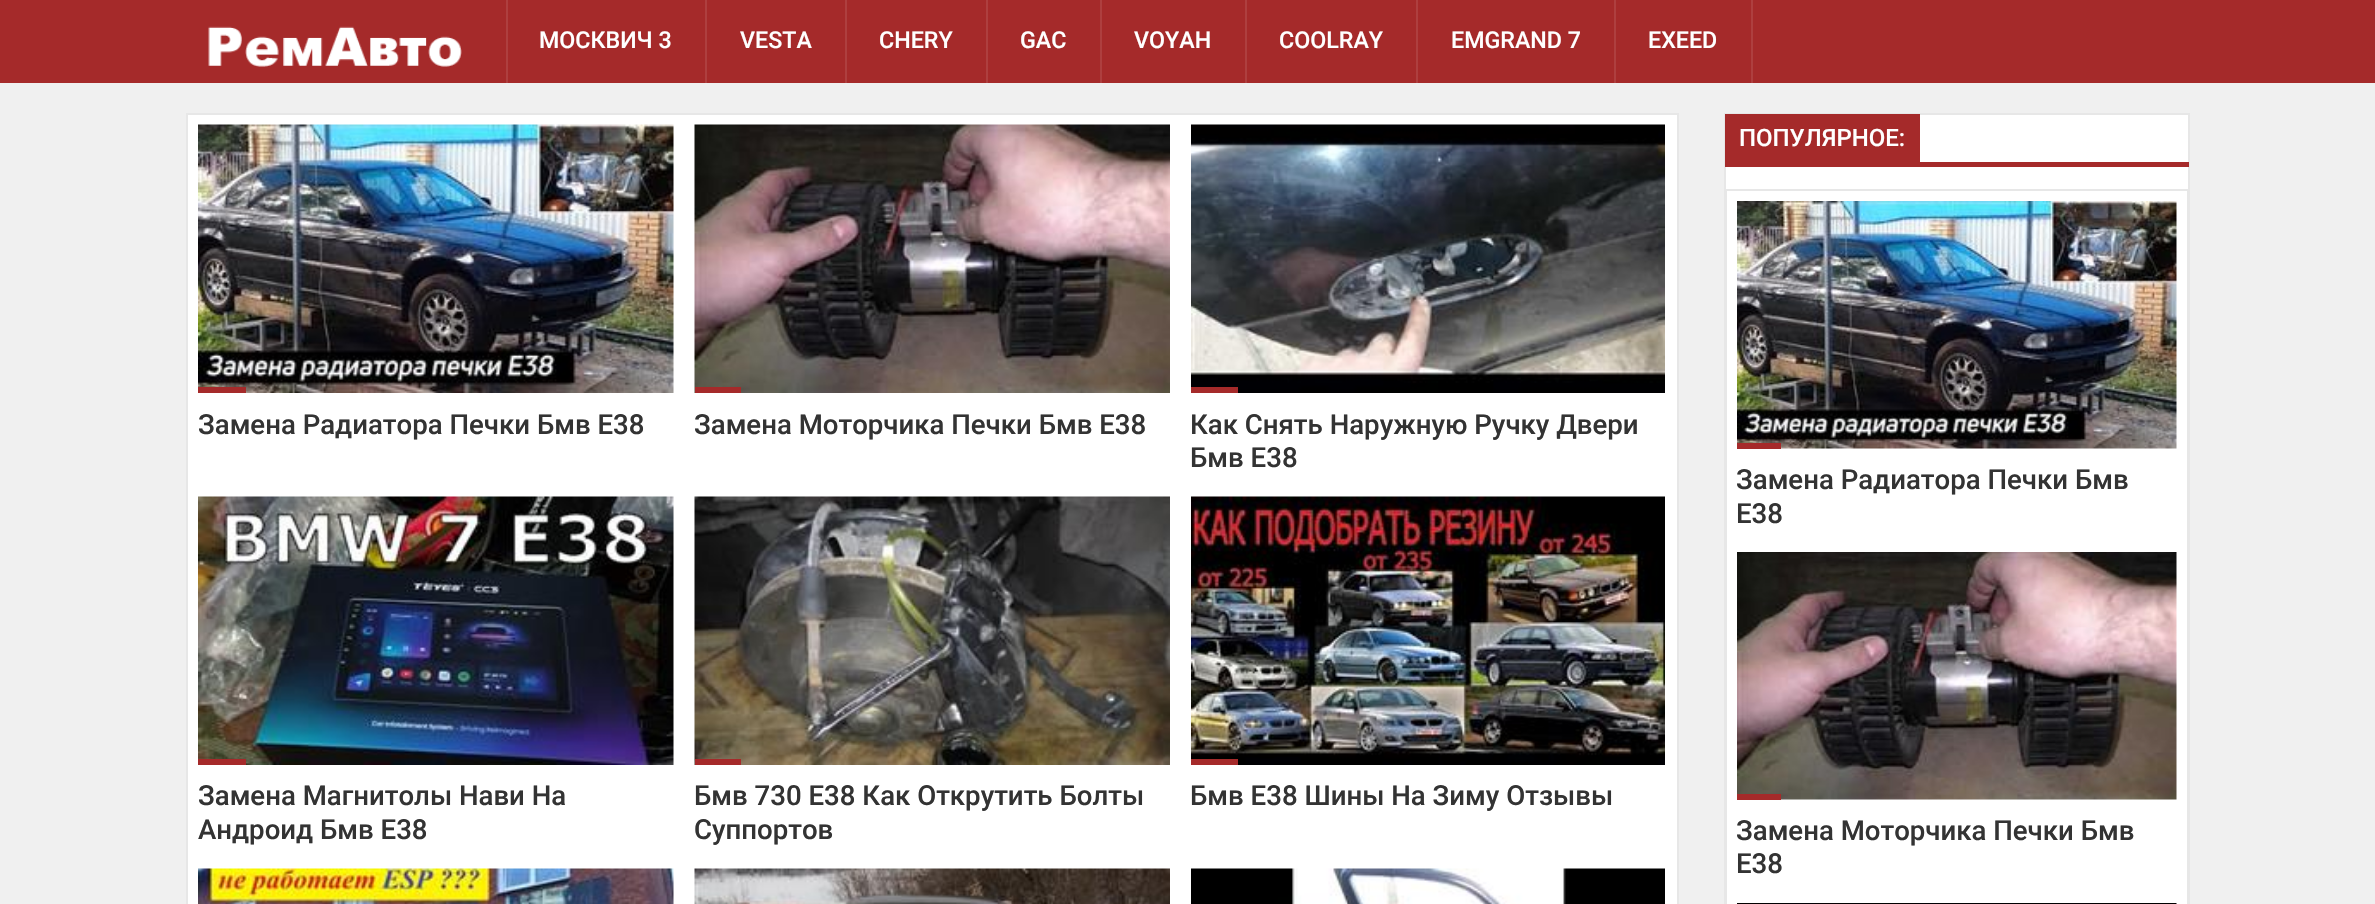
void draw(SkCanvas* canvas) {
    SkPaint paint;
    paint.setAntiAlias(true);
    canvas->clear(0xFFF0F0F0);
    paint.setColor(0xFFA52A2A);
    canvas->drawRect(SkRect::MakeXYWH(0, 0, 2375, 83), paint);
    canvas->drawImageRect(SkImages::DeferredFromEncodedData(SkData::MakeFromFileName("img1.png")), SkRect::MakeXYWH(208, 26, 254, 41), SkSamplingOptions());
    paint.setColor(0xFFAE3F3F);
    canvas->drawRect(SkRect::MakeXYWH(705, 0, 2, 83), paint);
    canvas->drawRect(SkRect::MakeXYWH(506, 0, 2, 83), paint);
    SkFont font1(fontMgr->matchFamilyStyle("Roboto", SkFontStyle(500, SkFontStyle::kNormal_Width, SkFontStyle::kUpright_Slant)), 23.25f);
    font1.setSubpixel(true);
    paint.setColor(0xFFFFFFFF);
    canvas->drawString("МОСКВИЧ 3", 539, 48, font1, paint);
    paint.setColor(0xFFAE3F3F);
    canvas->drawRect(SkRect::MakeXYWH(845, 0, 2, 83), paint);
    paint.setColor(0xFFFFFFFF);
    canvas->drawString("VESTA", 740, 48, font1, paint);
    paint.setColor(0xFFAE3F3F);
    canvas->drawRect(SkRect::MakeXYWH(986, 0, 2, 83), paint);
    paint.setColor(0xFFFFFFFF);
    canvas->drawString("CHERY", 879, 48, font1, paint);
    paint.setColor(0xFFAE3F3F);
    canvas->drawRect(SkRect::MakeXYWH(1100, 0, 2, 83), paint);
    paint.setColor(0xFFFFFFFF);
    canvas->drawString("GAC", 1020, 48, font1, paint);
    paint.setColor(0xFFAE3F3F);
    canvas->drawRect(SkRect::MakeXYWH(1245, 0, 2, 83), paint);
    paint.setColor(0xFFFFFFFF);
    canvas->drawString("VOYAH", 1134, 48, font1, paint);
    paint.setColor(0xFFAE3F3F);
    canvas->drawRect(SkRect::MakeXYWH(1416, 0, 2, 83), paint);
    paint.setColor(0xFFFFFFFF);
    canvas->drawString("COOLRAY", 1279, 48, font1, paint);
    paint.setColor(0xFFAE3F3F);
    canvas->drawRect(SkRect::MakeXYWH(1614, 0, 2, 83), paint);
    paint.setColor(0xFFFFFFFF);
    canvas->drawString("EMGRAND 7", 1451, 48, font1, paint);
    paint.setColor(0xFFAE3F3F);
    canvas->drawRect(SkRect::MakeXYWH(1751, 0, 2, 83), paint);
    paint.setColor(0xFFFFFFFF);
    canvas->drawString("EXEED", 1648, 48, font1, paint);
    canvas->drawRect(SkRect::MakeXYWH(187, 114, 1491, 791), paint);
    paint.setStyle(SkPaint::kStroke_Style);
    paint.setStrokeWidth(2);
    paint.setColor(0xFFE7E7E7);
    canvas->drawRect(SkRect::MakeXYWH(187, 114, 1491, 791), paint);
    canvas->drawImageRect(SkImages::DeferredFromEncodedData(SkData::MakeFromFileName("img2.png")), SkRect::MakeXYWH(198, 124, 476, 269), SkSamplingOptions());
    paint.setStyle(SkPaint::kFill_Style);
    paint.setColor(0xFFA52A2A);
    canvas->drawRect(SkRect::MakeXYWH(198, 387, 48, 6), paint);
    SkFont font2(fontMgr->matchFamilyStyle("Roboto", SkFontStyle(500, SkFontStyle::kNormal_Width, SkFontStyle::kUpright_Slant)), 27.6f);
    font2.setSubpixel(true);
    paint.setColor(0xFF333333);
    canvas->drawString("Замена Радиатора Печки Бмв Е38", 198, 434, font2, paint);
    canvas->drawImageRect(SkImages::DeferredFromEncodedData(SkData::MakeFromFileName("img3.png")), SkRect::MakeXYWH(694, 124, 476, 269), SkSamplingOptions());
    paint.setColor(0xFFA52A2A);
    canvas->drawRect(SkRect::MakeXYWH(695, 387, 46, 6), paint);
    paint.setColor(0xFF333333);
    canvas->drawString("Замена Моторчика Печки Бмв Е38", 694, 434, font2, paint);
    canvas->drawImageRect(SkImages::DeferredFromEncodedData(SkData::MakeFromFileName("img4.png")), SkRect::MakeXYWH(1191, 124, 474, 269), SkSamplingOptions());
    paint.setColor(0xFFA52A2A);
    canvas->drawRect(SkRect::MakeXYWH(1191, 387, 47, 6), paint);
    paint.setColor(0xFF333333);
    canvas->drawString("Как Снять Наружную Ручку Двери", 1190, 434, font2, paint);
    canvas->drawString("Бмв Е38", 1190, 467, font2, paint);
    canvas->drawImageRect(SkImages::DeferredFromEncodedData(SkData::MakeFromFileName("img5.png")), SkRect::MakeXYWH(198, 496, 476, 269), SkSamplingOptions());
    paint.setColor(0xFFA52A2A);
    canvas->drawRect(SkRect::MakeXYWH(198, 759, 48, 6), paint);
    paint.setColor(0xFF333333);
    canvas->drawString("Замена Магнитолы Нави На", 198, 805, font2, paint);
    canvas->drawString("Андроид Бмв Е38", 198, 839, font2, paint);
    canvas->drawImageRect(SkImages::DeferredFromEncodedData(SkData::MakeFromFileName("img6.png")), SkRect::MakeXYWH(694, 496, 476, 269), SkSamplingOptions());
    paint.setColor(0xFFA52A2A);
    canvas->drawRect(SkRect::MakeXYWH(695, 759, 46, 6), paint);
    paint.setColor(0xFF333333);
    canvas->drawString("Бмв 730 Е38 Как Открутить Болты", 694, 805, font2, paint);
    canvas->drawString("Суппортов", 694, 839, font2, paint);
    canvas->drawImageRect(SkImages::DeferredFromEncodedData(SkData::MakeFromFileName("img7.png")), SkRect::MakeXYWH(1191, 496, 474, 269), SkSamplingOptions());
    paint.setColor(0xFFA52A2A);
    canvas->drawRect(SkRect::MakeXYWH(1191, 759, 47, 6), paint);
    paint.setColor(0xFF333333);
    canvas->drawString("Бмв Е38 Шины На Зиму Отзывы", 1190, 805, font2, paint);
    canvas->drawImageRect(SkImages::DeferredFromEncodedData(SkData::MakeFromFileName("img8.png")), SkRect::MakeXYWH(198, 868, 476, 36), SkSamplingOptions());
    canvas->drawImageRect(SkImages::DeferredFromEncodedData(SkData::MakeFromFileName("img9.png")), SkRect::MakeXYWH(694, 868, 476, 36), SkSamplingOptions());
    canvas->drawImageRect(SkImages::DeferredFromEncodedData(SkData::MakeFromFileName("img10.png")), SkRect::MakeXYWH(1191, 868, 474, 36), SkSamplingOptions());
    paint.setColor(0xFFFFFFFF);
    canvas->drawRect(SkRect::MakeXYWH(1726, 115, 462, 74), paint);
    paint.setStyle(SkPaint::kStroke_Style);
    paint.setColor(0xFFE7E7E7);
    canvas->drawRect(SkRect::MakeXYWH(1725, 114, 464, 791), paint);
    paint.setStyle(SkPaint::kFill_Style);
    paint.setColor(0xFFA52A2A);
    canvas->drawRect(SkRect::MakeXYWH(1725, 162, 464, 5), paint);
    canvas->drawRect(SkRect::MakeXYWH(1725, 114, 195, 48), paint);
    SkFont font3(fontMgr->matchFamilyStyle("Roboto", SkFontStyle(500, SkFontStyle::kNormal_Width, SkFontStyle::kUpright_Slant)), 24);
    font3.setSubpixel(true);
    paint.setColor(0xFFFFFFFF);
    canvas->drawString("ПОПУЛЯРНОЕ:", 1739, 146, font3, paint);
    canvas->drawRect(SkRect::MakeXYWH(1726, 190, 462, 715), paint);
    paint.setStyle(SkPaint::kStroke_Style);
    paint.setColor(0xFFE7E7E7);
    canvas->drawRect(SkRect::MakeXYWH(1726, 190, 462, 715), paint);
    canvas->drawImageRect(SkImages::DeferredFromEncodedData(SkData::MakeFromFileName("img11.png")), SkRect::MakeXYWH(1737, 201, 440, 248), SkSamplingOptions());
    paint.setStyle(SkPaint::kFill_Style);
    paint.setColor(0xFFA52A2A);
    canvas->drawRect(SkRect::MakeXYWH(1737, 443, 44, 6), paint);
    paint.setColor(0xFF333333);
    canvas->drawString("Замена Радиатора Печки Бмв", 1736, 489, font2, paint);
    canvas->drawString("Е38", 1736, 523, font2, paint);
    canvas->drawImageRect(SkImages::DeferredFromEncodedData(SkData::MakeFromFileName("img12.png")), SkRect::MakeXYWH(1737, 552, 440, 248), SkSamplingOptions());
    paint.setColor(0xFFA52A2A);
    canvas->drawRect(SkRect::MakeXYWH(1737, 794, 44, 6), paint);
    paint.setColor(0xFF333333);
    canvas->drawString("Замена Моторчика Печки Бмв", 1736, 840, font2, paint);
    canvas->drawString("Е38", 1736, 873, font2, paint);
    canvas->drawImageRect(SkImages::DeferredFromEncodedData(SkData::MakeFromFileName("img13.png")), SkRect::MakeXYWH(1737, 903, 440, 1), SkSamplingOptions());
}
